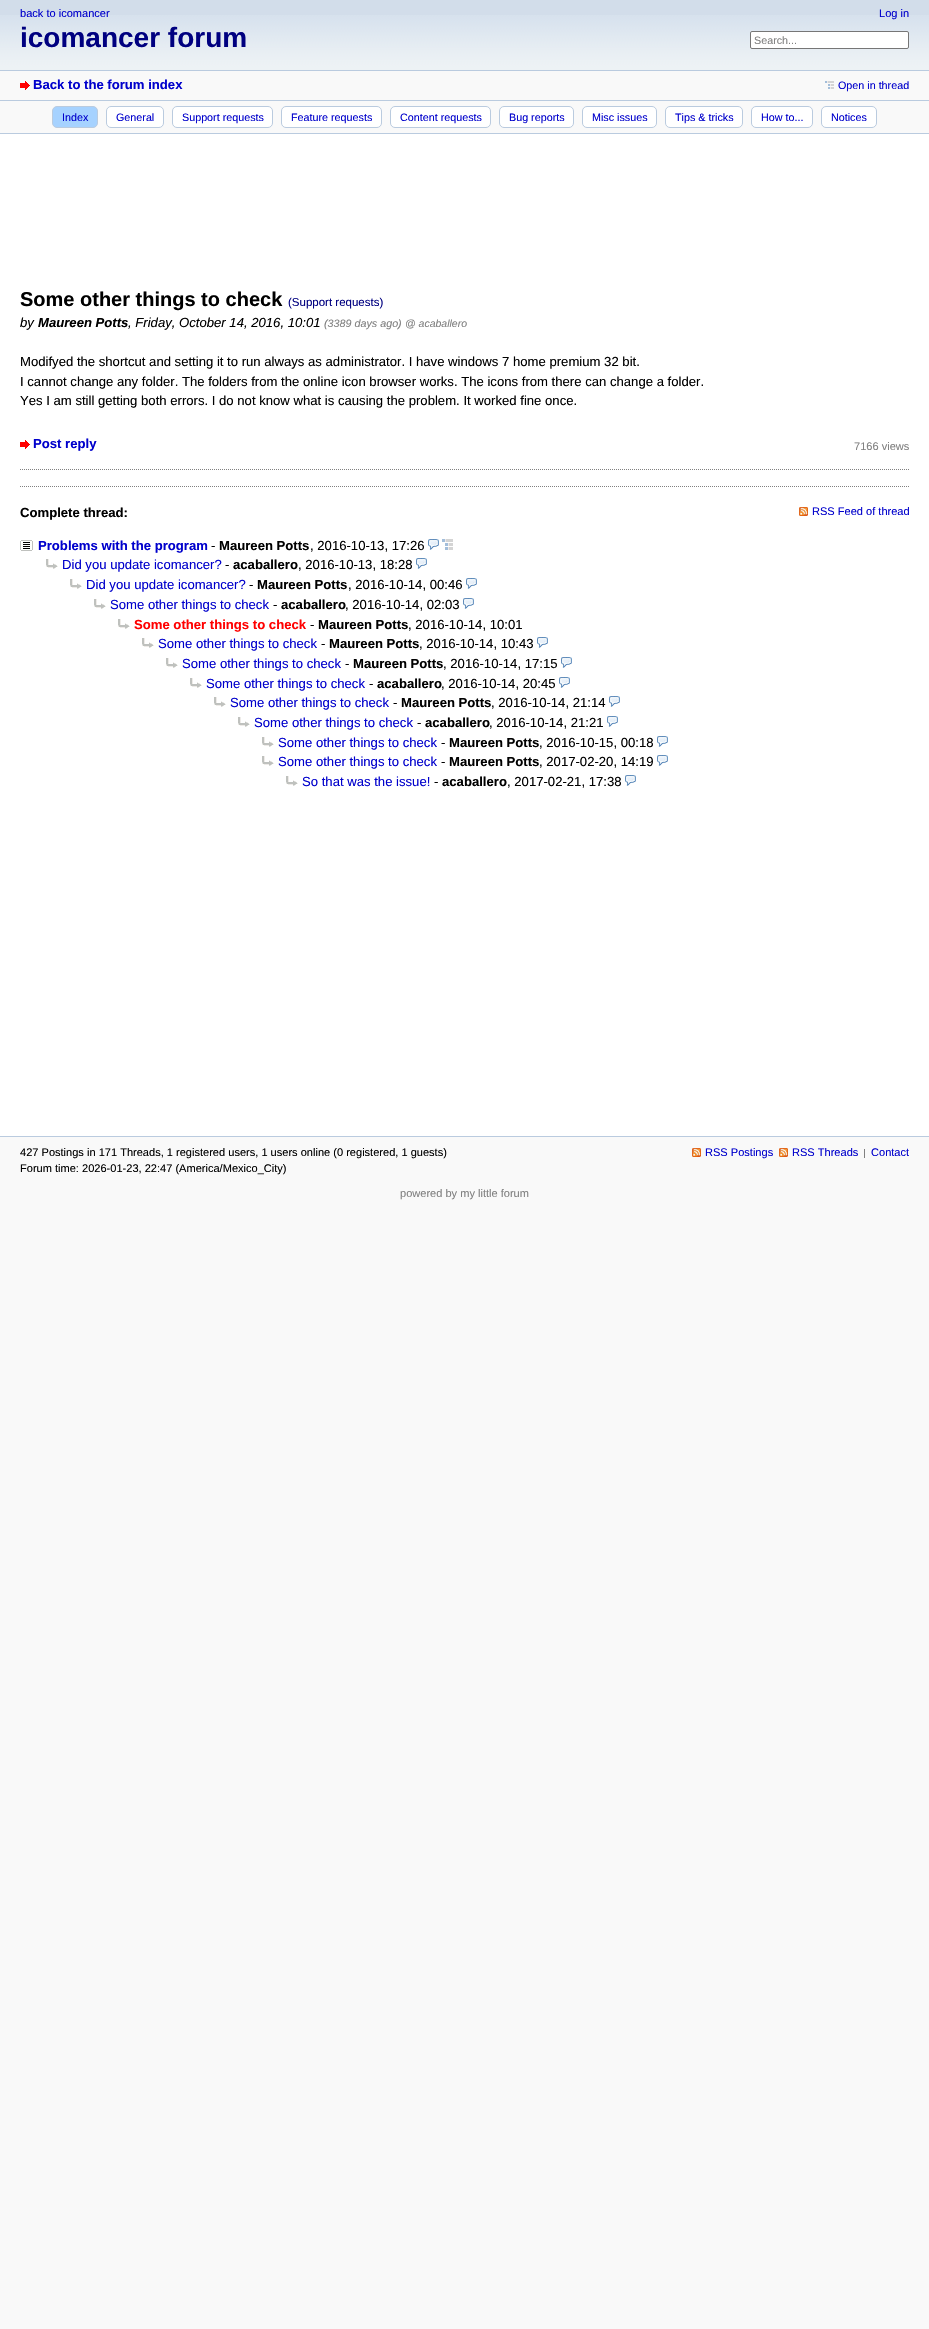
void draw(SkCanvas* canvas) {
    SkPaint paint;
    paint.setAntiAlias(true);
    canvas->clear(0xFFF9F9F9);
    paint.setColor(0xFFD2DDEA);
    canvas->drawRect(SkRect::MakeXYWH(0, 0, 929, 15), paint);
    canvas->drawImageRect(SkImages::DeferredFromEncodedData(SkData::MakeFromFileName("img1.png")), SkRect::MakeXYWH(0, 15, 929, 55), SkSamplingOptions());
    SkFont font1(fontMgr->matchFamilyStyle("Liberation Sans", SkFontStyle::Normal()), 11.05f);
    font1.setSubpixel(true);
    paint.setColor(0xFF0000CC);
    canvas->drawString("back to icomancer", 20, 17, font1, paint);
    SkFont font2(fontMgr->matchFamilyStyle("Liberation Sans", SkFontStyle::Bold()), 28);
    font2.setSubpixel(true);
    paint.setColor(0xFF000080);
    canvas->drawString("icomancer forum", 20, 47, font2, paint);
    paint.setColor(0xFF0000CC);
    canvas->drawString("Log in", 879, 17, font1, paint);
    paint.setColor(0xFFFFFFFF);
    canvas->drawRoundRect(SkRect::MakeXYWH(750.5f, 31.5f, 158, 17), 1.5f, 1.5f, paint);
    paint.setStyle(SkPaint::kStroke_Style);
    paint.setStrokeWidth(1);
    paint.setColor(0xFF767676);
    canvas->drawRoundRect(SkRect::MakeXYWH(750.5f, 31.5f, 158, 17), 1.5f, 1.5f, paint);
    SkFont font3(fontMgr->matchFamilyStyle("Liberation Sans", SkFontStyle::Normal()), 10.75f);
    font3.setSubpixel(true);
    paint.setStyle(SkPaint::kFill_Style);
    paint.setColor(0xFF808080);
    canvas->drawString("Search...", 754, 44, font3, paint);
    paint.setColor(0xFFBACBDF);
    canvas->drawRect(SkRect::MakeXYWH(0, 70, 929, 1), paint);
    canvas->drawRect(SkRect::MakeXYWH(0, 100, 929, 1), paint);
    canvas->drawImageRect(SkImages::DeferredFromEncodedData(SkData::MakeFromFileName("img2.png")), SkRect::MakeXYWH(20, 81, 10, 9), SkSamplingOptions());
    SkFont font4(fontMgr->matchFamilyStyle("Liberation Sans", SkFontStyle::Bold()), 13.12f);
    font4.setSubpixel(true);
    paint.setColor(0xFF0000CC);
    canvas->drawString("Back to the forum index", 33, 89, font4, paint);
    canvas->drawImageRect(SkImages::DeferredFromEncodedData(SkData::MakeFromFileName("img3.png")), SkRect::MakeXYWH(825, 81, 9, 8), SkSamplingOptions());
    canvas->drawString("Open in thread", 838, 89, font3, paint);
    paint.setColor(0xFFBACBDF);
    canvas->drawRect(SkRect::MakeXYWH(0, 133, 929, 1), paint);
    paint.setColor(0xFFA6D2FF);
    canvas->drawRoundRect(SkRect::MakeXYWH(52.5f, 106.5f, 45, 21), 4.5f, 4.5f, paint);
    paint.setStyle(SkPaint::kStroke_Style);
    paint.setColor(0xFFBACBDF);
    canvas->drawRoundRect(SkRect::MakeXYWH(52.5f, 106.5f, 45, 21), 4.5f, 4.5f, paint);
    paint.setStyle(SkPaint::kFill_Style);
    paint.setColor(0xFF0000CC);
    canvas->drawString("Index", 62, 121, font3, paint);
    paint.setColor(0xFFFFFFFF);
    canvas->drawRoundRect(SkRect::MakeXYWH(106.5f, 106.5f, 57, 21), 4.5f, 4.5f, paint);
    paint.setStyle(SkPaint::kStroke_Style);
    paint.setColor(0xFFBACBDF);
    canvas->drawRoundRect(SkRect::MakeXYWH(106.5f, 106.5f, 57, 21), 4.5f, 4.5f, paint);
    paint.setStyle(SkPaint::kFill_Style);
    paint.setColor(0xFF0000CC);
    canvas->drawString("General", 116, 121, font3, paint);
    paint.setColor(0xFFFFFFFF);
    canvas->drawRoundRect(SkRect::MakeXYWH(172.5f, 106.5f, 100, 21), 4.5f, 4.5f, paint);
    paint.setStyle(SkPaint::kStroke_Style);
    paint.setColor(0xFFBACBDF);
    canvas->drawRoundRect(SkRect::MakeXYWH(172.5f, 106.5f, 100, 21), 4.5f, 4.5f, paint);
    paint.setStyle(SkPaint::kFill_Style);
    paint.setColor(0xFF0000CC);
    canvas->drawString("Support requests", 182, 121, font3, paint);
    paint.setColor(0xFFFFFFFF);
    canvas->drawRoundRect(SkRect::MakeXYWH(281.5f, 106.5f, 100, 21), 4.5f, 4.5f, paint);
    paint.setStyle(SkPaint::kStroke_Style);
    paint.setColor(0xFFBACBDF);
    canvas->drawRoundRect(SkRect::MakeXYWH(281.5f, 106.5f, 100, 21), 4.5f, 4.5f, paint);
    paint.setStyle(SkPaint::kFill_Style);
    paint.setColor(0xFF0000CC);
    canvas->drawString("Feature requests", 291, 121, font3, paint);
    paint.setColor(0xFFFFFFFF);
    canvas->drawRoundRect(SkRect::MakeXYWH(390.5f, 106.5f, 100, 21), 4.5f, 4.5f, paint);
    paint.setStyle(SkPaint::kStroke_Style);
    paint.setColor(0xFFBACBDF);
    canvas->drawRoundRect(SkRect::MakeXYWH(390.5f, 106.5f, 100, 21), 4.5f, 4.5f, paint);
    paint.setStyle(SkPaint::kFill_Style);
    paint.setColor(0xFF0000CC);
    canvas->drawString("Content requests", 400, 121, font3, paint);
    paint.setColor(0xFFFFFFFF);
    canvas->drawRoundRect(SkRect::MakeXYWH(499.5f, 106.5f, 74, 21), 4.5f, 4.5f, paint);
    paint.setStyle(SkPaint::kStroke_Style);
    paint.setColor(0xFFBACBDF);
    canvas->drawRoundRect(SkRect::MakeXYWH(499.5f, 106.5f, 74, 21), 4.5f, 4.5f, paint);
    paint.setStyle(SkPaint::kFill_Style);
    paint.setColor(0xFF0000CC);
    canvas->drawString("Bug reports", 509, 121, font3, paint);
    paint.setColor(0xFFFFFFFF);
    canvas->drawRoundRect(SkRect::MakeXYWH(582.5f, 106.5f, 74, 21), 4.5f, 4.5f, paint);
    paint.setStyle(SkPaint::kStroke_Style);
    paint.setColor(0xFFBACBDF);
    canvas->drawRoundRect(SkRect::MakeXYWH(582.5f, 106.5f, 74, 21), 4.5f, 4.5f, paint);
    paint.setStyle(SkPaint::kFill_Style);
    paint.setColor(0xFF0000CC);
    canvas->drawString("Misc issues", 592, 121, font3, paint);
    paint.setColor(0xFFFFFFFF);
    canvas->drawRoundRect(SkRect::MakeXYWH(665.5f, 106.5f, 77, 21), 4.5f, 4.5f, paint);
    paint.setStyle(SkPaint::kStroke_Style);
    paint.setColor(0xFFBACBDF);
    canvas->drawRoundRect(SkRect::MakeXYWH(665.5f, 106.5f, 77, 21), 4.5f, 4.5f, paint);
    paint.setStyle(SkPaint::kFill_Style);
    paint.setColor(0xFF0000CC);
    canvas->drawString("Tips & tricks", 675, 121, font3, paint);
    paint.setColor(0xFFFFFFFF);
    canvas->drawRoundRect(SkRect::MakeXYWH(751.5f, 106.5f, 61, 21), 4.5f, 4.5f, paint);
    paint.setStyle(SkPaint::kStroke_Style);
    paint.setColor(0xFFBACBDF);
    canvas->drawRoundRect(SkRect::MakeXYWH(751.5f, 106.5f, 61, 21), 4.5f, 4.5f, paint);
    paint.setStyle(SkPaint::kFill_Style);
    paint.setColor(0xFF0000CC);
    canvas->drawString("How to...", 761, 121, font3, paint);
    paint.setColor(0xFFFFFFFF);
    canvas->drawRoundRect(SkRect::MakeXYWH(821.5f, 106.5f, 55, 21), 4.5f, 4.5f, paint);
    paint.setStyle(SkPaint::kStroke_Style);
    paint.setColor(0xFFBACBDF);
    canvas->drawRoundRect(SkRect::MakeXYWH(821.5f, 106.5f, 55, 21), 4.5f, 4.5f, paint);
    paint.setStyle(SkPaint::kFill_Style);
    paint.setColor(0xFF0000CC);
    canvas->drawString("Notices", 831, 121, font3, paint);
    paint.setColor(0xFFFFFFFF);
    canvas->drawRect(SkRect::MakeXYWH(0, 134, 929, 1002), paint);
    SkFont font5(fontMgr->matchFamilyStyle("Liberation Sans", SkFontStyle::Bold()), 20);
    font5.setSubpixel(true);
    paint.setColor(0xFF000000);
    canvas->drawString("Some other things to check", 20, 306, font5, paint);
    SkFont font6(fontMgr->matchFamilyStyle("Liberation Sans", SkFontStyle::Normal()), 11.5f);
    font6.setSubpixel(true);
    paint.setColor(0xFF000080);
    canvas->drawString("(Support requests)", 288, 306, font6, paint);
    SkFont font7(fontMgr->matchFamilyStyle("Liberation Sans", SkFontStyle::Italic()), 13.12f);
    font7.setSubpixel(true);
    paint.setColor(0xFF000000);
    canvas->drawString("by", 20, 327, font7, paint);
    SkFont font8(fontMgr->matchFamilyStyle("Liberation Sans", SkFontStyle::BoldItalic()), 13.12f);
    font8.setSubpixel(true);
    canvas->drawString("Maureen Potts", 38, 327, font8, paint);
    canvas->drawString(", Friday, October 14, 2016, 10:01", 128, 327, font7, paint);
    SkFont font9(fontMgr->matchFamilyStyle("Liberation Sans", SkFontStyle::Italic()), 10.75f);
    font9.setSubpixel(true);
    paint.setColor(0xFF808080);
    canvas->drawString("(3389 days ago)", 324, 327, font9, paint);
    SkFont font10(fontMgr->matchFamilyStyle("Liberation Sans", SkFontStyle::Italic()), 10.5f);
    font10.setSubpixel(true);
    canvas->drawString("@ acaballero", 405, 327, font10, paint);
    SkFont font11(fontMgr->matchFamilyStyle("Liberation Sans", SkFontStyle::Normal()), 13.12f);
    font11.setSubpixel(true);
    paint.setColor(0xFF000000);
    canvas->drawString("Modifyed the shortcut and setting it to run always as administrator. I have windows 7 home premium 32 bit.", 20, 366, font11, paint);
    canvas->drawString("I cannot change any folder. The folders from the online icon browser works. The icons from there can change a folder.", 20, 386, font11, paint);
    canvas->drawString("Yes I am still getting both errors. I do not know what is causing the problem. It worked fine once.", 20, 405, font11, paint);
    canvas->drawImageRect(SkImages::DeferredFromEncodedData(SkData::MakeFromFileName("img4.png")), SkRect::MakeXYWH(20, 440, 10, 9), SkSamplingOptions());
    paint.setColor(0xFF0000CC);
    canvas->drawString("Post reply", 33, 448, font4, paint);
    paint.setColor(0xFF808080);
    canvas->drawString("7166 views", 854, 450, font1, paint);
    paint.setStyle(SkPaint::kStroke_Style);
    paint.setPathEffect(SkDashPathEffect::Make({{1, 1}}, 0));
    canvas->drawPath(SkPathBuilder().moveTo(20, 469.5f).lineTo(909, 469.5f).detach(), paint);
    paint.setPathEffect(nullptr);
    paint.setPathEffect(SkDashPathEffect::Make({{1, 1}}, 0));
    canvas->drawPath(SkPathBuilder().moveTo(20, 486.5f).lineTo(909, 486.5f).detach(), paint);
    paint.setPathEffect(nullptr);
    paint.setStyle(SkPaint::kFill_Style);
    paint.setColor(0xFF000000);
    canvas->drawString("Complete thread:", 20, 517, font4, paint);
    canvas->drawImageRect(SkImages::DeferredFromEncodedData(SkData::MakeFromFileName("img5.png")), SkRect::MakeXYWH(799, 507, 9, 9), SkSamplingOptions());
    paint.setColor(0xFF0000CC);
    canvas->drawString("RSS Feed of thread", 812, 515, font1, paint);
    canvas->drawImageRect(SkImages::DeferredFromEncodedData(SkData::MakeFromFileName("img6.png")), SkRect::MakeXYWH(20, 540, 13, 11), SkSamplingOptions());
    canvas->drawString("Problems with the program", 38, 550, font4, paint);
    paint.setColor(0xFF000000);
    canvas->drawString("-", 211, 550, font11, paint);
    canvas->drawString("Maureen Potts", 219, 550, font4, paint);
    canvas->drawString(", 2016-10-13, 17:26", 310, 550, font11, paint);
    canvas->drawImageRect(SkImages::DeferredFromEncodedData(SkData::MakeFromFileName("img7.png")), SkRect::MakeXYWH(428, 539, 11, 11), SkSamplingOptions());
    canvas->drawImageRect(SkImages::DeferredFromEncodedData(SkData::MakeFromFileName("img8.png")), SkRect::MakeXYWH(442, 539, 11, 11), SkSamplingOptions());
    canvas->drawImageRect(SkImages::DeferredFromEncodedData(SkData::MakeFromFileName("img9.png")), SkRect::MakeXYWH(46, 559, 12, 10), SkSamplingOptions());
    paint.setColor(0xFF0000CC);
    canvas->drawString("Did you update icomancer?", 62, 569, font11, paint);
    paint.setColor(0xFF000000);
    canvas->drawString("-", 225, 569, font11, paint);
    canvas->drawString("acaballero", 233, 569, font4, paint);
    canvas->drawString(", 2016-10-13, 18:28", 298, 569, font11, paint);
    canvas->drawImageRect(SkImages::DeferredFromEncodedData(SkData::MakeFromFileName("img7.png")), SkRect::MakeXYWH(416, 558, 11, 11), SkSamplingOptions());
    canvas->drawImageRect(SkImages::DeferredFromEncodedData(SkData::MakeFromFileName("img9.png")), SkRect::MakeXYWH(70, 579, 12, 10), SkSamplingOptions());
    paint.setColor(0xFF0000CC);
    canvas->drawString("Did you update icomancer?", 86, 589, font11, paint);
    paint.setColor(0xFF000000);
    canvas->drawString("-", 249, 589, font11, paint);
    canvas->drawString("Maureen Potts", 257, 589, font4, paint);
    canvas->drawString(", 2016-10-14, 00:46", 348, 589, font11, paint);
    canvas->drawImageRect(SkImages::DeferredFromEncodedData(SkData::MakeFromFileName("img7.png")), SkRect::MakeXYWH(466, 578, 11, 11), SkSamplingOptions());
    canvas->drawImageRect(SkImages::DeferredFromEncodedData(SkData::MakeFromFileName("img9.png")), SkRect::MakeXYWH(94, 599, 12, 10), SkSamplingOptions());
    paint.setColor(0xFF0000CC);
    canvas->drawString("Some other things to check", 110, 609, font11, paint);
    paint.setColor(0xFF000000);
    canvas->drawString("-", 273, 609, font11, paint);
    canvas->drawString("acaballero", 281, 609, font4, paint);
    canvas->drawString(", 2016-10-14, 02:03", 345, 609, font11, paint);
    canvas->drawImageRect(SkImages::DeferredFromEncodedData(SkData::MakeFromFileName("img7.png")), SkRect::MakeXYWH(463, 598, 11, 11), SkSamplingOptions());
    canvas->drawImageRect(SkImages::DeferredFromEncodedData(SkData::MakeFromFileName("img9.png")), SkRect::MakeXYWH(118, 619, 12, 10), SkSamplingOptions());
    paint.setColor(0xFFFF0000);
    canvas->drawString("Some other things to check", 134, 629, font4, paint);
    paint.setColor(0xFF000000);
    canvas->drawString("-", 310, 629, font11, paint);
    canvas->drawString("Maureen Potts", 318, 629, font4, paint);
    canvas->drawString(", 2016-10-14, 10:01", 408, 629, font11, paint);
    canvas->drawImageRect(SkImages::DeferredFromEncodedData(SkData::MakeFromFileName("img9.png")), SkRect::MakeXYWH(142, 638, 12, 10), SkSamplingOptions());
    paint.setColor(0xFF0000CC);
    canvas->drawString("Some other things to check", 158, 648, font11, paint);
    paint.setColor(0xFF000000);
    canvas->drawString("-", 321, 648, font11, paint);
    canvas->drawString("Maureen Potts", 329, 648, font4, paint);
    canvas->drawString(", 2016-10-14, 10:43", 419, 648, font11, paint);
    canvas->drawImageRect(SkImages::DeferredFromEncodedData(SkData::MakeFromFileName("img7.png")), SkRect::MakeXYWH(537, 637, 11, 11), SkSamplingOptions());
    canvas->drawImageRect(SkImages::DeferredFromEncodedData(SkData::MakeFromFileName("img9.png")), SkRect::MakeXYWH(166, 658, 12, 10), SkSamplingOptions());
    paint.setColor(0xFF0000CC);
    canvas->drawString("Some other things to check", 182, 668, font11, paint);
    paint.setColor(0xFF000000);
    canvas->drawString("-", 345, 668, font11, paint);
    canvas->drawString("Maureen Potts", 353, 668, font4, paint);
    canvas->drawString(", 2016-10-14, 17:15", 443, 668, font11, paint);
    canvas->drawImageRect(SkImages::DeferredFromEncodedData(SkData::MakeFromFileName("img7.png")), SkRect::MakeXYWH(561, 657, 11, 11), SkSamplingOptions());
    canvas->drawImageRect(SkImages::DeferredFromEncodedData(SkData::MakeFromFileName("img9.png")), SkRect::MakeXYWH(190, 678, 12, 10), SkSamplingOptions());
    paint.setColor(0xFF0000CC);
    canvas->drawString("Some other things to check", 206, 688, font11, paint);
    paint.setColor(0xFF000000);
    canvas->drawString("-", 369, 688, font11, paint);
    canvas->drawString("acaballero", 377, 688, font4, paint);
    canvas->drawString(", 2016-10-14, 20:45", 441, 688, font11, paint);
    canvas->drawImageRect(SkImages::DeferredFromEncodedData(SkData::MakeFromFileName("img7.png")), SkRect::MakeXYWH(559, 677, 11, 11), SkSamplingOptions());
    canvas->drawImageRect(SkImages::DeferredFromEncodedData(SkData::MakeFromFileName("img9.png")), SkRect::MakeXYWH(214, 697, 12, 10), SkSamplingOptions());
    paint.setColor(0xFF0000CC);
    canvas->drawString("Some other things to check", 230, 707, font11, paint);
    paint.setColor(0xFF000000);
    canvas->drawString("-", 393, 707, font11, paint);
    canvas->drawString("Maureen Potts", 401, 707, font4, paint);
    canvas->drawString(", 2016-10-14, 21:14", 491, 707, font11, paint);
    canvas->drawImageRect(SkImages::DeferredFromEncodedData(SkData::MakeFromFileName("img7.png")), SkRect::MakeXYWH(609, 696, 11, 11), SkSamplingOptions());
    canvas->drawImageRect(SkImages::DeferredFromEncodedData(SkData::MakeFromFileName("img9.png")), SkRect::MakeXYWH(238, 717, 12, 10), SkSamplingOptions());
    paint.setColor(0xFF0000CC);
    canvas->drawString("Some other things to check", 254, 727, font11, paint);
    paint.setColor(0xFF000000);
    canvas->drawString("-", 417, 727, font11, paint);
    canvas->drawString("acaballero", 425, 727, font4, paint);
    canvas->drawString(", 2016-10-14, 21:21", 489, 727, font11, paint);
    canvas->drawImageRect(SkImages::DeferredFromEncodedData(SkData::MakeFromFileName("img7.png")), SkRect::MakeXYWH(607, 716, 11, 11), SkSamplingOptions());
    canvas->drawImageRect(SkImages::DeferredFromEncodedData(SkData::MakeFromFileName("img9.png")), SkRect::MakeXYWH(262, 737, 12, 10), SkSamplingOptions());
    paint.setColor(0xFF0000CC);
    canvas->drawString("Some other things to check", 278, 747, font11, paint);
    paint.setColor(0xFF000000);
    canvas->drawString("-", 441, 747, font11, paint);
    canvas->drawString("Maureen Potts", 449, 747, font4, paint);
    canvas->drawString(", 2016-10-15, 00:18", 539, 747, font11, paint);
    canvas->drawImageRect(SkImages::DeferredFromEncodedData(SkData::MakeFromFileName("img7.png")), SkRect::MakeXYWH(657, 736, 11, 11), SkSamplingOptions());
    canvas->drawImageRect(SkImages::DeferredFromEncodedData(SkData::MakeFromFileName("img9.png")), SkRect::MakeXYWH(262, 756, 12, 10), SkSamplingOptions());
    paint.setColor(0xFF0000CC);
    canvas->drawString("Some other things to check", 278, 766, font11, paint);
    paint.setColor(0xFF000000);
    canvas->drawString("-", 441, 766, font11, paint);
    canvas->drawString("Maureen Potts", 449, 766, font4, paint);
    canvas->drawString(", 2017-02-20, 14:19", 539, 766, font11, paint);
    canvas->drawImageRect(SkImages::DeferredFromEncodedData(SkData::MakeFromFileName("img7.png")), SkRect::MakeXYWH(657, 755, 11, 11), SkSamplingOptions());
    canvas->drawImageRect(SkImages::DeferredFromEncodedData(SkData::MakeFromFileName("img9.png")), SkRect::MakeXYWH(286, 776, 12, 10), SkSamplingOptions());
    paint.setColor(0xFF0000CC);
    canvas->drawString("So that was the issue!", 302, 786, font11, paint);
    paint.setColor(0xFF000000);
    canvas->drawString("-", 434, 786, font11, paint);
    canvas->drawString("acaballero", 442, 786, font4, paint);
    canvas->drawString(", 2017-02-21, 17:38", 507, 786, font11, paint);
    canvas->drawImageRect(SkImages::DeferredFromEncodedData(SkData::MakeFromFileName("img7.png")), SkRect::MakeXYWH(625, 775, 11, 11), SkSamplingOptions());
    paint.setColor(0xFFBACBDF);
    canvas->drawRect(SkRect::MakeXYWH(0, 1136, 929, 1), paint);
    paint.setColor(0xFF000000);
    canvas->drawString("427 Postings in 171 Threads, 1 registered users, 1 users online (0 registered, 1 guests)", 20, 1156, font1, paint);
    canvas->drawString("Forum time: 2026-01-23, 22:47 (America/Mexico_City)", 20, 1172, font1, paint);
    canvas->drawImageRect(SkImages::DeferredFromEncodedData(SkData::MakeFromFileName("img5.png")), SkRect::MakeXYWH(692, 1148, 9, 9), SkSamplingOptions());
    paint.setColor(0xFF0000CC);
    canvas->drawString("RSS Postings", 705, 1156, font1, paint);
    canvas->drawImageRect(SkImages::DeferredFromEncodedData(SkData::MakeFromFileName("img5.png")), SkRect::MakeXYWH(779, 1148, 9, 9), SkSamplingOptions());
    canvas->drawString("RSS Threads", 792, 1156, font1, paint);
    canvas->drawString("Contact", 871, 1156, font1, paint);
    paint.setColor(0xFF808080);
    canvas->drawRect(SkRect::MakeXYWH(864, 1149, 1, 9), paint);
    canvas->drawString("powered by my little forum", 400, 1197, font1, paint);
}
